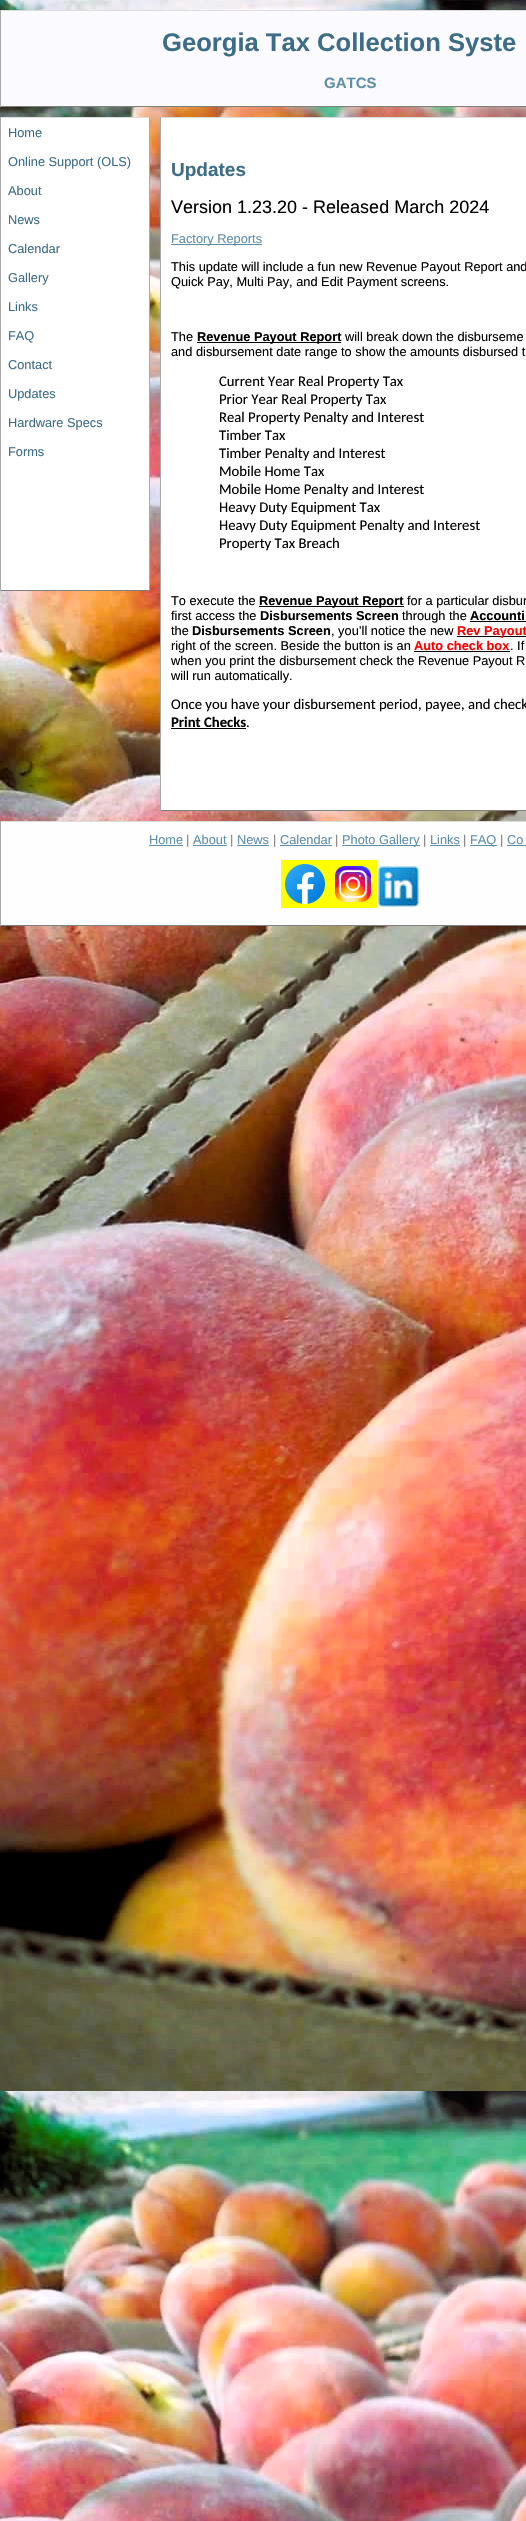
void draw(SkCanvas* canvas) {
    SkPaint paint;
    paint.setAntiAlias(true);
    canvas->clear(0xFFFFFFFF);
    canvas->drawImageRect(SkImages::DeferredFromEncodedData(SkData::MakeFromFileName("img1.png")), SkRect::MakeXYWH(0, 0, 526, 2521), SkSamplingOptions());
    paint.setColor(0xFFFAFAFF);
    canvas->drawRect(SkRect::MakeXYWH(1, 11, 525, 95), paint);
    paint.setColor(0xFFDCDCDC);
    canvas->drawRect(SkRect::MakeXYWH(0, 10, 526, 1), paint);
    paint.setColor(0xFF808080);
    canvas->drawRect(SkRect::MakeXYWH(0, 106, 526, 1), paint);
    paint.setColor(0xFFA9A9A9);
    canvas->drawRect(SkRect::MakeXYWH(0, 10, 1, 97), paint);
    SkFont font1(fontMgr->matchFamilyStyle("Liberation Sans", SkFontStyle::Bold()), 25.6f);
    font1.setSubpixel(true);
    paint.setColor(0xFF3D6C87);
    canvas->drawString("Georgia Tax Collection Syste", 162, 51, font1, paint);
    SkFont font2(fontMgr->matchFamilyStyle("Liberation Sans", SkFontStyle::Bold()), 15);
    font2.setSubpixel(true);
    paint.setColor(0xFF5F8EA9);
    canvas->drawString("GATCS", 324, 88, font2, paint);
    paint.setColor(0xFFFFFFFF);
    canvas->drawRect(SkRect::MakeXYWH(1, 118, 148, 472), paint);
    paint.setColor(0xFFDCDCDC);
    canvas->drawRect(SkRect::MakeXYWH(0, 117, 150, 1), paint);
    paint.setColor(0xFFA9A9A9);
    canvas->drawRect(SkRect::MakeXYWH(149, 117, 1, 474), paint);
    paint.setColor(0xFF808080);
    canvas->drawRect(SkRect::MakeXYWH(0, 590, 150, 1), paint);
    paint.setColor(0xFFA9A9A9);
    canvas->drawRect(SkRect::MakeXYWH(0, 117, 1, 474), paint);
    SkFont font3(fontMgr->matchFamilyStyle("Liberation Sans", SkFontStyle::Normal()), 12.8f);
    font3.setSubpixel(true);
    paint.setColor(0xFF3D6C87);
    canvas->drawString("Home", 8, 137, font3, paint);
    canvas->drawString("Online Support (OLS)", 8, 166, font3, paint);
    canvas->drawString("About", 8, 195, font3, paint);
    canvas->drawString("News", 8, 224, font3, paint);
    canvas->drawString("Calendar", 8, 253, font3, paint);
    canvas->drawString("Gallery", 8, 282, font3, paint);
    canvas->drawString("Links", 8, 311, font3, paint);
    canvas->drawString("FAQ", 8, 340, font3, paint);
    canvas->drawString("Contact", 8, 369, font3, paint);
    canvas->drawString("Updates", 8, 398, font3, paint);
    canvas->drawString("Hardware Specs", 8, 427, font3, paint);
    canvas->drawString("Forms", 8, 456, font3, paint);
    paint.setColor(0xFFFFFFFF);
    canvas->drawRect(SkRect::MakeXYWH(161, 118, 365, 692), paint);
    paint.setColor(0xFFDCDCDC);
    canvas->drawRect(SkRect::MakeXYWH(160, 117, 366, 1), paint);
    paint.setColor(0xFF808080);
    canvas->drawRect(SkRect::MakeXYWH(160, 810, 366, 1), paint);
    paint.setColor(0xFFA9A9A9);
    canvas->drawRect(SkRect::MakeXYWH(160, 117, 1, 694), paint);
    SkFont font4(fontMgr->matchFamilyStyle("Liberation Sans", SkFontStyle::Bold()), 19);
    font4.setSubpixel(true);
    paint.setColor(0xFF3D6C87);
    canvas->drawString("Updates", 171, 176, font4, paint);
    SkFont font5(fontMgr->matchFamilyStyle("Liberation Sans", SkFontStyle::Normal()), 18);
    font5.setSubpixel(true);
    paint.setColor(0xFF000000);
    canvas->drawString("Version 1.23.20 - Released March 2024", 171, 213, font5, paint);
    paint.setColor(0xFF5F8EA9);
    canvas->drawRect(SkRect::MakeXYWH(171, 244, 91, 1), paint);
    canvas->drawString("Factory Reports", 171, 243, font3, paint);
    paint.setColor(0xFF000000);
    canvas->drawString("This update will include a fun new Revenue Payout Report and", 171, 271, font3, paint);
    canvas->drawString("Quick Pay, Multi Pay, and Edit Payment screens.", 171, 286, font3, paint);
    canvas->drawString("The", 171, 341, font3, paint);
    canvas->drawRect(SkRect::MakeXYWH(197, 342, 144, 1), paint);
    SkFont font6(fontMgr->matchFamilyStyle("Liberation Sans", SkFontStyle::Bold()), 12.8f);
    font6.setSubpixel(true);
    canvas->drawString("Revenue Payout Report", 197, 341, font6, paint);
    canvas->drawString("will break down the disburseme", 345, 341, font3, paint);
    canvas->drawString("and disbursement date range to show the amounts disbursed t", 171, 356, font3, paint);
    SkFont font7(fontMgr->matchFamilyStyle("Carlito", SkFontStyle::Normal()), 14.7f);
    font7.setSubpixel(true);
    canvas->drawString("Current Year Real Property Tax", 219, 386, font7, paint);
    canvas->drawString("Prior Year Real Property Tax", 219, 404, font7, paint);
    canvas->drawString("Real Property Penalty and Interest", 219, 422, font7, paint);
    canvas->drawString("Timber Tax", 219, 440, font7, paint);
    canvas->drawString("Timber Penalty and Interest", 219, 458, font7, paint);
    canvas->drawString("Mobile Home Tax", 219, 476, font7, paint);
    canvas->drawString("Mobile Home Penalty and Interest", 219, 494, font7, paint);
    canvas->drawString("Heavy Duty Equipment Tax", 219, 512, font7, paint);
    canvas->drawString("Heavy Duty Equipment Penalty and Interest", 219, 530, font7, paint);
    canvas->drawString("Property Tax Breach", 219, 548, font7, paint);
    canvas->drawString("To execute the", 171, 605, font3, paint);
    canvas->drawRect(SkRect::MakeXYWH(259, 606, 145, 1), paint);
    canvas->drawString("Revenue Payout Report", 259, 605, font6, paint);
    canvas->drawString("for a particular disbur", 407, 605, font3, paint);
    canvas->drawString("first access the", 171, 620, font3, paint);
    canvas->drawString("Disbursements Screen", 260, 620, font6, paint);
    canvas->drawString("through the", 402, 620, font3, paint);
    canvas->drawString("Accounti", 470, 620, font6, paint);
    canvas->drawRect(SkRect::MakeXYWH(470, 621, 56, 1), paint);
    canvas->drawString("the", 171, 635, font3, paint);
    canvas->drawString("Disbursements Screen", 192, 635, font6, paint);
    canvas->drawString(", you’ll notice the new", 331, 635, font3, paint);
    canvas->drawRect(SkRect::MakeXYWH(457, 636, 69, 1), paint);
    paint.setColor(0xFFFF0000);
    canvas->drawString("Rev Payout", 457, 635, font6, paint);
    paint.setColor(0xFF000000);
    canvas->drawString("right of the screen. Beside the button is an", 171, 650, font3, paint);
    paint.setColor(0xFFFF0000);
    canvas->drawString("Auto check box", 414, 650, font6, paint);
    paint.setColor(0xFF000000);
    canvas->drawRect(SkRect::MakeXYWH(414, 651, 96, 1), paint);
    canvas->drawString(". If", 510, 650, font3, paint);
    canvas->drawString("when you print the disbursement check the Revenue Payout R", 171, 665, font3, paint);
    canvas->drawString("will run automatically.", 171, 680, font3, paint);
    canvas->drawString("Once you have your disbursement period, payee, and check", 171, 709, font7, paint);
    SkFont font8(fontMgr->matchFamilyStyle("Carlito", SkFontStyle::Bold()), 14.7f);
    font8.setSubpixel(true);
    canvas->drawString("Print Checks", 171, 727, font8, paint);
    canvas->drawString(".", 246, 727, font7, paint);
    canvas->drawRect(SkRect::MakeXYWH(171, 728, 75, 1), paint);
    paint.setColor(0xFFFEFEFF);
    canvas->drawRect(SkRect::MakeXYWH(1, 822, 525, 103), paint);
    paint.setColor(0xFFDCDCDC);
    canvas->drawRect(SkRect::MakeXYWH(0, 821, 526, 1), paint);
    paint.setColor(0xFF808080);
    canvas->drawRect(SkRect::MakeXYWH(0, 925, 526, 1), paint);
    paint.setColor(0xFFA9A9A9);
    canvas->drawRect(SkRect::MakeXYWH(0, 821, 1, 105), paint);
    paint.setColor(0xFF5F8EA9);
    canvas->drawString("Home", 149, 844, font3, paint);
    canvas->drawRect(SkRect::MakeXYWH(149, 845, 34, 1), paint);
    paint.setColor(0xFF808080);
    canvas->drawString("|", 186, 844, font3, paint);
    paint.setColor(0xFF5F8EA9);
    canvas->drawString("About", 193, 844, font3, paint);
    canvas->drawRect(SkRect::MakeXYWH(193, 845, 34, 1), paint);
    paint.setColor(0xFF808080);
    canvas->drawString("|", 230, 844, font3, paint);
    paint.setColor(0xFF5F8EA9);
    canvas->drawString("News", 237, 844, font3, paint);
    canvas->drawRect(SkRect::MakeXYWH(237, 845, 32, 1), paint);
    paint.setColor(0xFF808080);
    canvas->drawString("|", 273, 844, font3, paint);
    paint.setColor(0xFF5F8EA9);
    canvas->drawString("Calendar", 280, 844, font3, paint);
    canvas->drawRect(SkRect::MakeXYWH(280, 845, 52, 1), paint);
    paint.setColor(0xFF808080);
    canvas->drawString("|", 335, 844, font3, paint);
    paint.setColor(0xFF5F8EA9);
    canvas->drawRect(SkRect::MakeXYWH(342, 845, 78, 1), paint);
    canvas->drawString("Photo Gallery", 342, 844, font3, paint);
    paint.setColor(0xFF808080);
    canvas->drawString("|", 423, 844, font3, paint);
    paint.setColor(0xFF5F8EA9);
    canvas->drawString("Links", 430, 844, font3, paint);
    canvas->drawRect(SkRect::MakeXYWH(430, 845, 30, 1), paint);
    paint.setColor(0xFF808080);
    canvas->drawString("|", 463, 844, font3, paint);
    paint.setColor(0xFF5F8EA9);
    canvas->drawRect(SkRect::MakeXYWH(470, 845, 27, 1), paint);
    canvas->drawString("FAQ", 470, 844, font3, paint);
    paint.setColor(0xFF808080);
    canvas->drawString("|", 500, 844, font3, paint);
    paint.setColor(0xFF5F8EA9);
    canvas->drawString("Co", 507, 844, font3, paint);
    canvas->drawRect(SkRect::MakeXYWH(507, 845, 19, 1), paint);
    paint.setColor(0xFFFFFF00);
    canvas->drawRect(SkRect::MakeXYWH(281, 860, 96, 48), paint);
    canvas->drawImageRect(SkImages::DeferredFromEncodedData(SkData::MakeFromFileName("img2.png")), SkRect::MakeXYWH(285, 864, 40, 40), SkSamplingOptions());
    canvas->drawImageRect(SkImages::DeferredFromEncodedData(SkData::MakeFromFileName("img3.png")), SkRect::MakeXYWH(335, 866, 36, 36), SkSamplingOptions());
    canvas->drawImageRect(SkImages::DeferredFromEncodedData(SkData::MakeFromFileName("img4.png")), SkRect::MakeXYWH(377, 865, 43, 43), SkSamplingOptions());
}
